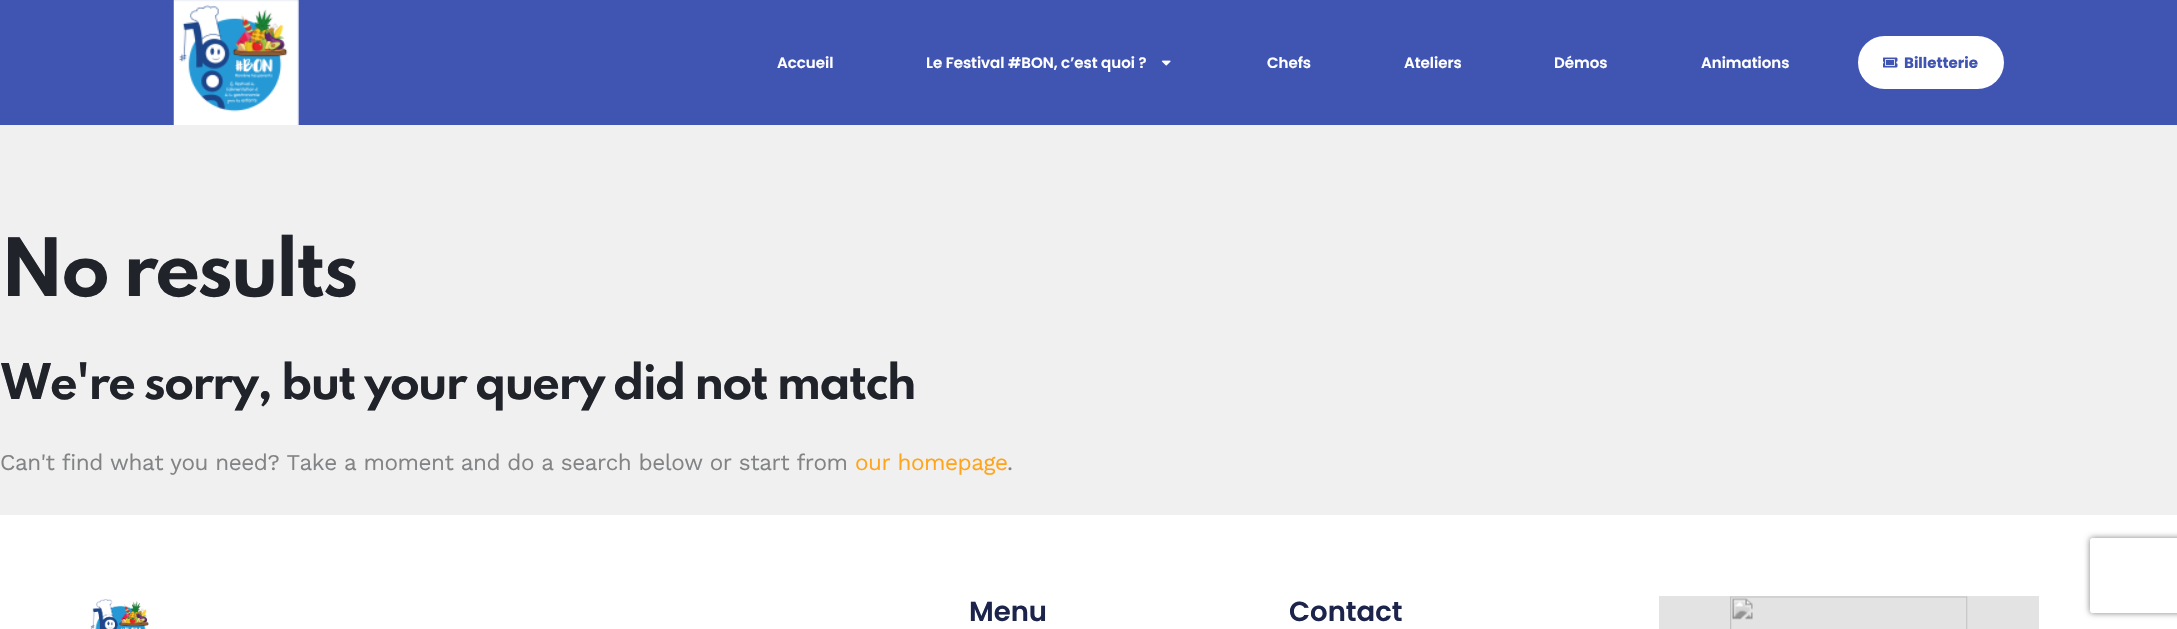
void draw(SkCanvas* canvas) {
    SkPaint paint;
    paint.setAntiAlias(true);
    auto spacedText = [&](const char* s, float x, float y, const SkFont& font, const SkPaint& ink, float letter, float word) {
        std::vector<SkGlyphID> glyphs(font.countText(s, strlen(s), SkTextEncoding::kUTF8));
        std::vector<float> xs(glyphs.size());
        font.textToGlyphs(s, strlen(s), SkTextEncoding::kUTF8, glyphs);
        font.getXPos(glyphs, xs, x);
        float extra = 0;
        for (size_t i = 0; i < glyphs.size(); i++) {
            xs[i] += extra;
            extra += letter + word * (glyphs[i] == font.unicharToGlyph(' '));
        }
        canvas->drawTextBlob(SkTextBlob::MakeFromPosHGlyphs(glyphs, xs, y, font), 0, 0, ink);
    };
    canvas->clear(0xFFF0F0F0);
    paint.setColor(0xFF4054B2);
    canvas->drawRect(SkRect::MakeXYWH(0, 0, 2177, 125), paint);
    canvas->drawImageRect(SkImages::DeferredFromEncodedData(SkData::MakeFromFileName("img1.png")), SkRect::MakeXYWH(173, 0, 126, 125), SkSamplingOptions());
    SkFont font1(fontMgr->matchFamilyStyle("Poppins", SkFontStyle(600, SkFontStyle::kNormal_Width, SkFontStyle::kUpright_Slant)), 15);
    font1.setSubpixel(true);
    paint.setColor(0xFFFFFFFF);
    canvas->drawString("Accueil", 777, 68, font1, paint);
    canvas->drawString("Le Festival #BON, c’est quoi ?", 926, 68, font1, paint);
    canvas->drawImageRect(SkImages::DeferredFromEncodedData(SkData::MakeFromFileName("img2.png")), SkRect::MakeXYWH(1161, 60, 10, 6), SkSamplingOptions());
    canvas->drawString("Chefs", 1267, 68, font1, paint);
    canvas->drawString("Ateliers", 1404, 68, font1, paint);
    canvas->drawString("Démos", 1554, 68, font1, paint);
    canvas->drawString("Animations", 1701, 68, font1, paint);
    canvas->drawRoundRect(SkRect::MakeXYWH(1858, 36, 146, 53), 26.5f, 26.5f, paint);
    canvas->drawImageRect(SkImages::DeferredFromEncodedData(SkData::MakeFromFileName("img3.png")), SkRect::MakeXYWH(1883, 57, 15, 11), SkSamplingOptions());
    SkFont font2(fontMgr->matchFamilyStyle("Poppins", SkFontStyle::Bold()), 15);
    font2.setSubpixel(true);
    paint.setColor(0xFF4054B2);
    canvas->drawString("Billetterie", 1904, 68, font2, paint);
    SkFont font3(fontMgr->matchFamilyStyle("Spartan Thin", SkFontStyle::Bold()), 71.25f);
    font3.setSubpixel(true);
    paint.setColor(0xFF20232A);
    spacedText("No results", 0, 296, font3, paint, -3.5f, 0);
    SkFont font4(fontMgr->matchFamilyStyle("Spartan Thin", SkFontStyle::Bold()), 43.75f);
    font4.setSubpixel(true);
    spacedText("We're sorry, but your query did not match", 0, 399, font4, paint, -2.2f, 0);
    SkFont font5(fontMgr->matchFamilyStyle("Work Sans", SkFontStyle::Normal()), 22.5f);
    font5.setSubpixel(true);
    paint.setColor(0xFF828385);
    spacedText("Can't find what you need? Take a moment and do a search below or start from", 0, 470, font5, paint, -0.45f, 0);
    paint.setColor(0xFFFFA51D);
    spacedText("our homepage", 855, 470, font5, paint, -0.45f, 0);
    paint.setColor(0xFF828385);
    spacedText(".", 1007, 470, font5, paint, -0.45f, 0);
    paint.setColor(0xFFFFFFFF);
    canvas->drawRect(SkRect::MakeXYWH(0, 515, 2177, 114), paint);
    canvas->drawImageRect(SkImages::DeferredFromEncodedData(SkData::MakeFromFileName("img4.png")), SkRect::MakeXYWH(90, 598, 59, 31), SkSamplingOptions());
    SkFont font6(fontMgr->matchFamilyStyle("Poppins", SkFontStyle(600, SkFontStyle::kNormal_Width, SkFontStyle::kUpright_Slant)), 27.5f);
    font6.setSubpixel(true);
    paint.setColor(0xFF1C244B);
    canvas->drawString("Menu", 969, 621, font6, paint);
    canvas->drawString("Contact", 1289, 621, font6, paint);
    canvas->drawImageRect(SkImages::DeferredFromEncodedData(SkData::MakeFromFileName("img5.png")), SkRect::MakeXYWH(1659, 596, 380, 33), SkSamplingOptions());
    canvas->save();
    canvas->clipPath(SkPathBuilder(SkPathFillType::kEvenOdd).moveTo(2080, 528).lineTo(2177, 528).lineTo(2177, 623).lineTo(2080, 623).close().moveTo(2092.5f, 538).lineTo(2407.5f, 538).cubicTo(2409, 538, 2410, 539, 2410, 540.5f).lineTo(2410, 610.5f).cubicTo(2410, 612, 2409, 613, 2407.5f, 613).lineTo(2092.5f, 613).cubicTo(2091, 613, 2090, 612, 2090, 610.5f).lineTo(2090, 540.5f).cubicTo(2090, 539, 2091, 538, 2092.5f, 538).close().detach(), true);
    paint.setColor(0xFF808080);
    paint.setMaskFilter(SkMaskFilter::MakeBlur(kNormal_SkBlurStyle, 3));
    canvas->drawRoundRect(SkRect::MakeXYWH(2090, 538, 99, 75), 2.5f, 2.5f, paint);
    paint.setMaskFilter(nullptr);
    canvas->restore();
}
